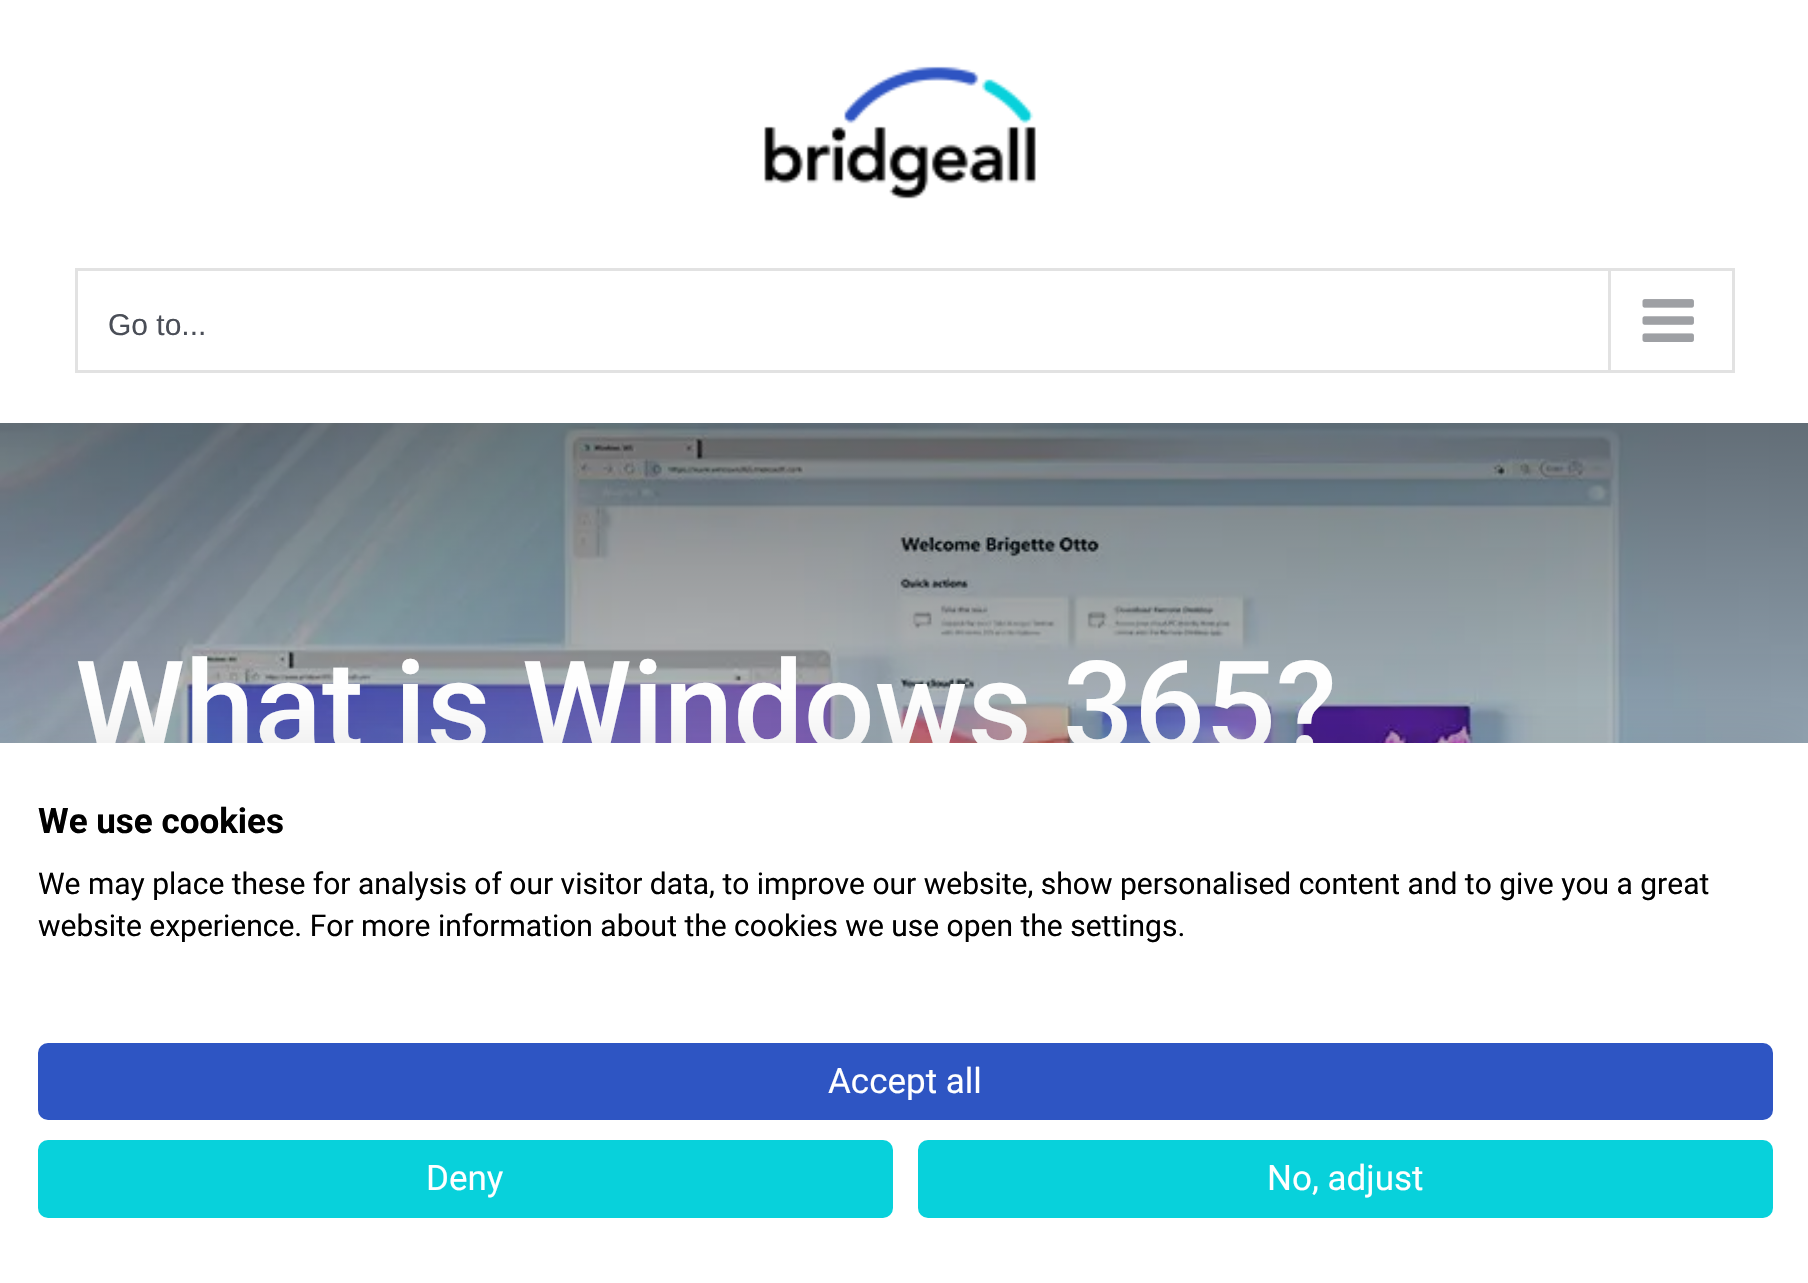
void draw(SkCanvas* canvas) {
    SkPaint paint;
    paint.setAntiAlias(true);
    canvas->clear(0xFFFFFFFF);
    canvas->drawImageRect(SkImages::DeferredFromEncodedData(SkData::MakeFromFileName("img1.png")), SkRect::MakeXYWH(764, 66, 272, 133), SkSamplingOptions());
    paint.setStyle(SkPaint::kStroke_Style);
    paint.setStrokeWidth(3);
    paint.setColor(0xFFE2E2E2);
    canvas->drawRect(SkRect::MakeXYWH(76.5f, 269.5f, 1657, 102), paint);
    SkFont font1(fontMgr->matchFamilyStyle("Liberation Sans", SkFontStyle::Normal()), 30);
    font1.setSubpixel(true);
    paint.setStyle(SkPaint::kFill_Style);
    paint.setColor(0xFF4A4E57);
    canvas->drawString("Go to...", 108, 335, font1, paint);
    paint.setColor(0xFFE2E2E2);
    canvas->drawRect(SkRect::MakeXYWH(1608, 270, 3, 100), paint);
    canvas->drawImageRect(SkImages::DeferredFromEncodedData(SkData::MakeFromFileName("img2.png")), SkRect::MakeXYWH(1642, 299, 52, 43), SkSamplingOptions());
    canvas->drawImageRect(SkImages::DeferredFromEncodedData(SkData::MakeFromFileName("img3.png")), SkRect::MakeXYWH(0, 423, 1808, 320), SkSamplingOptions());
    SkFont font2(fontMgr->matchFamilyStyle("Roboto", SkFontStyle(500, SkFontStyle::kNormal_Width, SkFontStyle::kUpright_Slant)), 125);
    font2.setSubpixel(true);
    paint.setColor(0xFFFFFFFF);
    canvas->drawString("What is Windows 365?", 75, 750, font2, paint);
    paint.setColor(0x1A000000);
    paint.setMaskFilter(SkMaskFilter::MakeBlur(kNormal_SkBlurStyle, 30));
    canvas->drawRect(SkRect::MakeXYWH(0, 743, 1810, 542), paint);
    paint.setMaskFilter(nullptr);
    paint.setColor(0xFFFFFFFF);
    canvas->drawRect(SkRect::MakeXYWH(0, 743, 1808, 540), paint);
    SkFont font3(fontMgr->matchFamilyStyle("Roboto", SkFontStyle::Bold()), 35);
    font3.setSubpixel(true);
    paint.setColor(0xFF000000);
    canvas->drawString("We use cookies", 38, 833, font3, paint);
    SkFont font4(fontMgr->matchFamilyStyle("Roboto", SkFontStyle::Normal()), 30);
    font4.setSubpixel(true);
    canvas->drawString("We may place these for analysis of our visitor data, to improve our website, show personalised content and to give you a great", 38, 894, font4, paint);
    canvas->drawString("website experience. For more information about the cookies we use open the settings.", 38, 936, font4, paint);
    paint.setColor(0xFF2E55C3);
    canvas->drawRoundRect(SkRect::MakeXYWH(39.5f, 1044.5f, 1732, 74), 8.5f, 8.5f, paint);
    paint.setStyle(SkPaint::kStroke_Style);
    canvas->drawRoundRect(SkRect::MakeXYWH(39.5f, 1044.5f, 1732, 74), 8.5f, 8.5f, paint);
    SkFont font5(fontMgr->matchFamilyStyle("Roboto", SkFontStyle::Normal()), 35);
    font5.setSubpixel(true);
    paint.setStyle(SkPaint::kFill_Style);
    paint.setColor(0xFFFFFFFF);
    canvas->drawString("Accept all", 828, 1093, font5, paint);
    paint.setColor(0xFF08D1DB);
    canvas->drawRoundRect(SkRect::MakeXYWH(39.5f, 1141.5f, 852, 75), 8.5f, 8.5f, paint);
    paint.setStyle(SkPaint::kStroke_Style);
    canvas->drawRoundRect(SkRect::MakeXYWH(39.5f, 1141.5f, 852, 75), 8.5f, 8.5f, paint);
    paint.setStyle(SkPaint::kFill_Style);
    paint.setColor(0xFFFFFFFF);
    canvas->drawString("Deny", 426, 1190, font5, paint);
    paint.setColor(0xFF08D1DB);
    canvas->drawRoundRect(SkRect::MakeXYWH(919.5f, 1141.5f, 852, 75), 8.5f, 8.5f, paint);
    paint.setStyle(SkPaint::kStroke_Style);
    canvas->drawRoundRect(SkRect::MakeXYWH(919.5f, 1141.5f, 852, 75), 8.5f, 8.5f, paint);
    paint.setStyle(SkPaint::kFill_Style);
    paint.setColor(0xFFFFFFFF);
    canvas->drawString("No, adjust", 1267, 1190, font5, paint);
}
